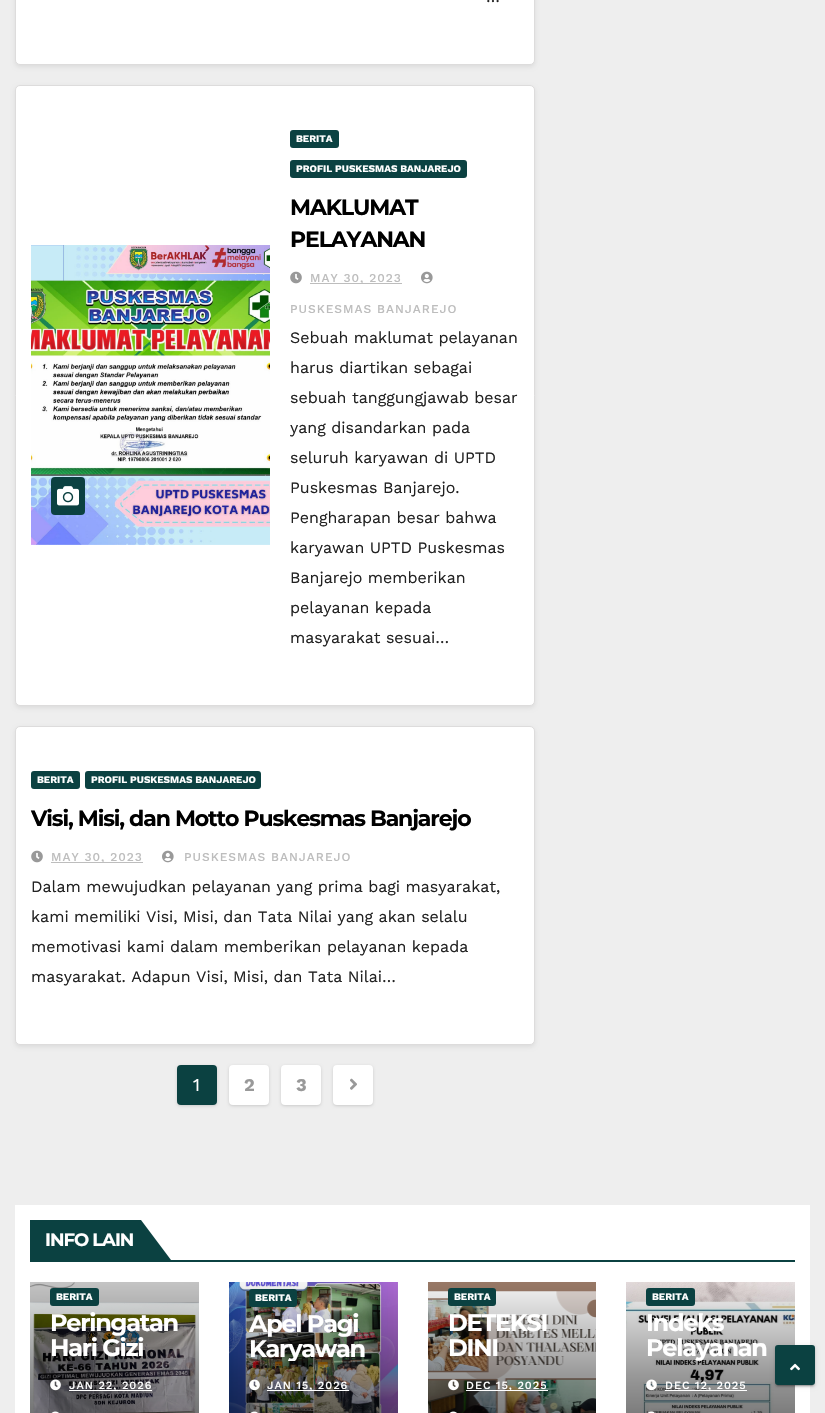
void draw(SkCanvas* canvas) {
    SkPaint paint;
    paint.setAntiAlias(true);
    auto spacedText = [&](const char* s, float x, float y, const SkFont& font, const SkPaint& ink, float letter, float word) {
        std::vector<SkGlyphID> glyphs(font.countText(s, strlen(s), SkTextEncoding::kUTF8));
        std::vector<float> xs(glyphs.size());
        font.textToGlyphs(s, strlen(s), SkTextEncoding::kUTF8, glyphs);
        font.getXPos(glyphs, xs, x);
        float extra = 0;
        for (size_t i = 0; i < glyphs.size(); i++) {
            xs[i] += extra;
            extra += letter + word * (glyphs[i] == font.unicharToGlyph(' '));
        }
        canvas->drawTextBlob(SkTextBlob::MakeFromPosHGlyphs(glyphs, xs, y, font), 0, 0, ink);
    };
    canvas->clear(0xFFEEEEEE);
    paint.setColor(0x14000000);
    paint.setMaskFilter(SkMaskFilter::MakeBlur(kNormal_SkBlurStyle, 2));
    canvas->drawRoundRect(SkRect::MakeXYWH(15, -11, 520, 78), 5, 5, paint);
    paint.setMaskFilter(nullptr);
    paint.setColor(0xFFFFFFFF);
    canvas->drawRoundRect(SkRect::MakeXYWH(15.5f, -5.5f, 519, 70), 4.5f, 4.5f, paint);
    paint.setStyle(SkPaint::kStroke_Style);
    paint.setStrokeWidth(1);
    paint.setColor(0xFFDDDCDC);
    canvas->drawRoundRect(SkRect::MakeXYWH(15.5f, -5.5f, 519, 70), 4.5f, 4.5f, paint);
    SkFont font1(fontMgr->matchFamilyStyle("Work Sans", SkFontStyle::Normal()), 16);
    font1.setSubpixel(true);
    paint.setStyle(SkPaint::kFill_Style);
    paint.setColor(0xFF222222);
    canvas->drawString("…", 486, 2, font1, paint);
    paint.setColor(0x14000000);
    paint.setMaskFilter(SkMaskFilter::MakeBlur(kNormal_SkBlurStyle, 2));
    canvas->drawRoundRect(SkRect::MakeXYWH(15, 87, 520, 621), 5, 5, paint);
    paint.setMaskFilter(nullptr);
    paint.setColor(0xFFFFFFFF);
    canvas->drawRoundRect(SkRect::MakeXYWH(15.5f, 85.5f, 519, 620), 4.5f, 4.5f, paint);
    paint.setStyle(SkPaint::kStroke_Style);
    paint.setColor(0xFFDDDCDC);
    canvas->drawRoundRect(SkRect::MakeXYWH(15.5f, 85.5f, 519, 620), 4.5f, 4.5f, paint);
    canvas->drawImageRect(SkImages::DeferredFromEncodedData(SkData::MakeFromFileName("img1.png")), SkRect::MakeXYWH(31, 245, 239, 300), SkSamplingOptions());
    paint.setStyle(SkPaint::kFill_Style);
    paint.setColor(0xFF0B4141);
    canvas->drawRoundRect(SkRect::MakeXYWH(51, 477, 34, 38), 4, 4, paint);
    canvas->drawImageRect(SkImages::DeferredFromEncodedData(SkData::MakeFromFileName("img2.png")), SkRect::MakeXYWH(57, 486, 22, 20), SkSamplingOptions());
    canvas->drawRoundRect(SkRect::MakeXYWH(290, 130, 49, 18), 3, 3, paint);
    SkFont font2(fontMgr->matchFamilyStyle("Work Sans", SkFontStyle::Bold()), 10);
    font2.setSubpixel(true);
    paint.setColor(0xFFFFFFFF);
    canvas->drawString("BERITA", 296, 142, font2, paint);
    paint.setColor(0xFF0B4141);
    canvas->drawRoundRect(SkRect::MakeXYWH(290, 160, 177, 18), 3, 3, paint);
    paint.setColor(0xFFFFFFFF);
    canvas->drawString("PROFIL PUSKESMAS BANJAREJO", 296, 172, font2, paint);
    SkFont font3(fontMgr->matchFamilyStyle("Montserrat", SkFontStyle::Bold()), 22);
    font3.setSubpixel(true);
    paint.setColor(0xFF000000);
    spacedText("MAKLUMAT", 290, 215, font3, paint, -1.1f, 0);
    spacedText("PELAYANAN", 290, 247, font3, paint, -1.1f, 0);
    canvas->drawImageRect(SkImages::DeferredFromEncodedData(SkData::MakeFromFileName("img3.png")), SkRect::MakeXYWH(290, 271, 12, 13), SkSamplingOptions());
    paint.setColor(0xFFBDBDBD);
    canvas->drawRect(SkRect::MakeXYWH(310, 283, 92, 1), paint);
    SkFont font4(fontMgr->matchFamilyStyle("Work Sans", SkFontStyle(500, SkFontStyle::kNormal_Width, SkFontStyle::kUpright_Slant)), 12);
    font4.setSubpixel(true);
    spacedText("MAY 30, 2023", 310, 282, font4, paint, 1, 0);
    canvas->drawImageRect(SkImages::DeferredFromEncodedData(SkData::MakeFromFileName("img4.png")), SkRect::MakeXYWH(421, 271, 12, 13), SkSamplingOptions());
    spacedText("PUSKESMAS BANJAREJO", 290, 313, font4, paint, 1, 0);
    paint.setColor(0xFF222222);
    canvas->drawString("Sebuah maklumat pelayanan", 290, 343, font1, paint);
    canvas->drawString("harus diartikan sebagai", 290, 373, font1, paint);
    canvas->drawString("sebuah tanggungjawab besar", 290, 403, font1, paint);
    canvas->drawString("yang disandarkan pada", 290, 433, font1, paint);
    canvas->drawString("seluruh karyawan di UPTD", 290, 463, font1, paint);
    canvas->drawString("Puskesmas Banjarejo.", 290, 493, font1, paint);
    canvas->drawString("Pengharapan besar bahwa", 290, 523, font1, paint);
    canvas->drawString("karyawan UPTD Puskesmas", 290, 553, font1, paint);
    canvas->drawString("Banjarejo memberikan", 290, 583, font1, paint);
    canvas->drawString("pelayanan kepada", 290, 613, font1, paint);
    canvas->drawString("masyarakat sesuai…", 290, 643, font1, paint);
    paint.setColor(0x14000000);
    paint.setMaskFilter(SkMaskFilter::MakeBlur(kNormal_SkBlurStyle, 2));
    canvas->drawRoundRect(SkRect::MakeXYWH(15, 728, 520, 319), 5, 5, paint);
    paint.setMaskFilter(nullptr);
    paint.setColor(0xFFFFFFFF);
    canvas->drawRoundRect(SkRect::MakeXYWH(15.5f, 726.5f, 519, 318), 4.5f, 4.5f, paint);
    paint.setStyle(SkPaint::kStroke_Style);
    paint.setColor(0xFFDDDCDC);
    canvas->drawRoundRect(SkRect::MakeXYWH(15.5f, 726.5f, 519, 318), 4.5f, 4.5f, paint);
    paint.setStyle(SkPaint::kFill_Style);
    paint.setColor(0xFF0B4141);
    canvas->drawRoundRect(SkRect::MakeXYWH(31, 771, 49, 18), 3, 3, paint);
    paint.setColor(0xFFFFFFFF);
    canvas->drawString("BERITA", 37, 783, font2, paint);
    paint.setColor(0xFF0B4141);
    canvas->drawRoundRect(SkRect::MakeXYWH(85, 771, 176, 18), 3, 3, paint);
    paint.setColor(0xFFFFFFFF);
    canvas->drawString("PROFIL PUSKESMAS BANJAREJO", 91, 783, font2, paint);
    paint.setColor(0xFF000000);
    spacedText("Visi, Misi, dan Motto Puskesmas Banjarejo", 31, 826, font3, paint, -1.1f, 0);
    canvas->drawImageRect(SkImages::DeferredFromEncodedData(SkData::MakeFromFileName("img3.png")), SkRect::MakeXYWH(31, 850, 12, 13), SkSamplingOptions());
    paint.setColor(0xFFBDBDBD);
    canvas->drawRect(SkRect::MakeXYWH(51, 862, 92, 1), paint);
    spacedText("MAY 30, 2023", 51, 861, font4, paint, 1, 0);
    canvas->drawImageRect(SkImages::DeferredFromEncodedData(SkData::MakeFromFileName("img4.png")), SkRect::MakeXYWH(162, 850, 12, 13), SkSamplingOptions());
    spacedText("PUSKESMAS BANJAREJO", 184, 861, font4, paint, 1, 0);
    paint.setColor(0xFF222222);
    canvas->drawString("Dalam mewujudkan pelayanan yang prima bagi masyarakat,", 31, 892, font1, paint);
    canvas->drawString("kami memiliki Visi, Misi, dan Tata Nilai yang akan selalu", 31, 922, font1, paint);
    canvas->drawString("memotivasi kami dalam memberikan pelayanan kepada", 31, 952, font1, paint);
    canvas->drawString("masyarakat. Adapun Visi, Misi, dan Tata Nilai…", 31, 982, font1, paint);
    paint.setColor(0x26000000);
    paint.setMaskFilter(SkMaskFilter::MakeBlur(kNormal_SkBlurStyle, 1.5f));
    canvas->drawRoundRect(SkRect::MakeXYWH(177, 1066, 40, 40), 4, 4, paint);
    paint.setMaskFilter(nullptr);
    paint.setColor(0xFF0B4141);
    canvas->drawRoundRect(SkRect::MakeXYWH(177, 1065, 40, 40), 4, 4, paint);
    SkFont font5(fontMgr->matchFamilyStyle("Work Sans", SkFontStyle::Normal()), 18);
    font5.setSubpixel(true);
    paint.setColor(0xFFFFFFFF);
    canvas->drawString("1", 193, 1091, font5, paint);
    paint.setColor(0x26000000);
    paint.setMaskFilter(SkMaskFilter::MakeBlur(kNormal_SkBlurStyle, 1.5f));
    canvas->drawRoundRect(SkRect::MakeXYWH(229, 1066, 40, 40), 4, 4, paint);
    paint.setMaskFilter(nullptr);
    paint.setColor(0xFFFFFFFF);
    canvas->drawRoundRect(SkRect::MakeXYWH(229, 1065, 40, 40), 4, 4, paint);
    SkFont font6(fontMgr->matchFamilyStyle("Work Sans", SkFontStyle::Bold()), 18);
    font6.setSubpixel(true);
    paint.setColor(0xFF999999);
    canvas->drawString("2", 244, 1091, font6, paint);
    paint.setColor(0x26000000);
    paint.setMaskFilter(SkMaskFilter::MakeBlur(kNormal_SkBlurStyle, 1.5f));
    canvas->drawRoundRect(SkRect::MakeXYWH(281, 1066, 40, 40), 4, 4, paint);
    paint.setMaskFilter(nullptr);
    paint.setColor(0xFFFFFFFF);
    canvas->drawRoundRect(SkRect::MakeXYWH(281, 1065, 40, 40), 4, 4, paint);
    paint.setColor(0xFF999999);
    canvas->drawString("3", 296, 1091, font6, paint);
    paint.setColor(0x26000000);
    paint.setMaskFilter(SkMaskFilter::MakeBlur(kNormal_SkBlurStyle, 1.5f));
    canvas->drawRoundRect(SkRect::MakeXYWH(333, 1066, 40, 40), 4, 4, paint);
    paint.setMaskFilter(nullptr);
    paint.setColor(0xFFFFFFFF);
    canvas->drawRoundRect(SkRect::MakeXYWH(333, 1065, 40, 40), 4, 4, paint);
    canvas->drawImageRect(SkImages::DeferredFromEncodedData(SkData::MakeFromFileName("img5.png")), SkRect::MakeXYWH(350, 1078, 7, 12), SkSamplingOptions());
    canvas->drawRect(SkRect::MakeXYWH(15, 1205, 795, 208), paint);
    paint.setColor(0xFF0B4141);
    canvas->drawRect(SkRect::MakeXYWH(30, 1260, 765, 2), paint);
    canvas->drawRect(SkRect::MakeXYWH(30, 1220, 111, 40), paint);
    SkFont font7(fontMgr->matchFamilyStyle("Montserrat", SkFontStyle::Bold()), 18);
    font7.setSubpixel(true);
    paint.setColor(0xFFFFFFFF);
    spacedText("INFO LAIN", 45, 1246, font7, paint, -1, 0);
    paint.setColor(0xFF0B4141);
    canvas->drawPath(SkPathBuilder().moveTo(141, 1260).lineTo(141, 1220).lineTo(171, 1260).close().detach(), paint);
    canvas->drawImageRect(SkImages::DeferredFromEncodedData(SkData::MakeFromFileName("img6.png")), SkRect::MakeXYWH(30, 1282, 169, 131), SkSamplingOptions());
    canvas->drawRoundRect(SkRect::MakeXYWH(50, 1288, 49, 18), 3, 3, paint);
    paint.setColor(0xFFFFFFFF);
    canvas->drawString("BERITA", 56, 1300, font2, paint);
    SkFont font8(fontMgr->matchFamilyStyle("Montserrat", SkFontStyle::Bold()), 24);
    font8.setSubpixel(true);
    spacedText("Peringatan", 50, 1331, font8, paint, -1.25f, 0);
    spacedText("Hari Gizi", 50, 1356, font8, paint, -1.25f, 0);
    canvas->drawImageRect(SkImages::DeferredFromEncodedData(SkData::MakeFromFileName("img7.png")), SkRect::MakeXYWH(50, 1379, 11, 12), SkSamplingOptions());
    canvas->drawRect(SkRect::MakeXYWH(69, 1390, 83, 1), paint);
    SkFont font9(fontMgr->matchFamilyStyle("Work Sans", SkFontStyle(500, SkFontStyle::kNormal_Width, SkFontStyle::kUpright_Slant)), 11);
    font9.setSubpixel(true);
    spacedText("JAN 22, 2026", 69, 1389, font9, paint, 1, 0);
    canvas->drawImageRect(SkImages::DeferredFromEncodedData(SkData::MakeFromFileName("img8.png")), SkRect::MakeXYWH(51, 1411, 8, 2), SkSamplingOptions());
    canvas->drawImageRect(SkImages::DeferredFromEncodedData(SkData::MakeFromFileName("img9.png")), SkRect::MakeXYWH(229, 1282, 169, 131), SkSamplingOptions());
    paint.setColor(0xFF0B4141);
    canvas->drawRoundRect(SkRect::MakeXYWH(249, 1289, 48, 18), 3, 3, paint);
    paint.setColor(0xFFFFFFFF);
    canvas->drawString("BERITA", 255, 1301, font2, paint);
    spacedText("Apel Pagi", 249, 1332, font8, paint, -1.25f, 0);
    canvas->save();
    canvas->clipRect(SkRect::MakeXYWH(249, 1311, 129, 50));
    spacedText("Karyawan", 249, 1357, font8, paint, -1.25f, 0);
    canvas->restore();
    canvas->drawImageRect(SkImages::DeferredFromEncodedData(SkData::MakeFromFileName("img10.png")), SkRect::MakeXYWH(249, 1379, 11, 12), SkSamplingOptions());
    canvas->drawRect(SkRect::MakeXYWH(267, 1390, 82, 1), paint);
    spacedText("JAN 15, 2026", 267, 1389, font9, paint, 1, 0);
    canvas->drawImageRect(SkImages::DeferredFromEncodedData(SkData::MakeFromFileName("img11.png")), SkRect::MakeXYWH(250, 1411, 8, 2), SkSamplingOptions());
    canvas->drawImageRect(SkImages::DeferredFromEncodedData(SkData::MakeFromFileName("img12.png")), SkRect::MakeXYWH(428, 1282, 168, 131), SkSamplingOptions());
    paint.setColor(0xFF0B4141);
    canvas->drawRoundRect(SkRect::MakeXYWH(448, 1288, 48, 18), 3, 3, paint);
    paint.setColor(0xFFFFFFFF);
    canvas->drawString("BERITA", 454, 1300, font2, paint);
    spacedText("DETEKSI", 448, 1331, font8, paint, -1.25f, 0);
    spacedText("DINI", 448, 1356, font8, paint, -1.25f, 0);
    canvas->drawImageRect(SkImages::DeferredFromEncodedData(SkData::MakeFromFileName("img13.png")), SkRect::MakeXYWH(448, 1379, 11, 12), SkSamplingOptions());
    canvas->drawRect(SkRect::MakeXYWH(466, 1390, 82, 1), paint);
    spacedText("DEC 15, 2025", 466, 1389, font9, paint, 1, 0);
    canvas->drawImageRect(SkImages::DeferredFromEncodedData(SkData::MakeFromFileName("img14.png")), SkRect::MakeXYWH(449, 1411, 8, 2), SkSamplingOptions());
    canvas->drawImageRect(SkImages::DeferredFromEncodedData(SkData::MakeFromFileName("img15.png")), SkRect::MakeXYWH(626, 1282, 169, 131), SkSamplingOptions());
    paint.setColor(0xFF0B4141);
    canvas->drawRoundRect(SkRect::MakeXYWH(646, 1288, 49, 18), 3, 3, paint);
    paint.setColor(0xFFFFFFFF);
    canvas->drawString("BERITA", 652, 1300, font2, paint);
    spacedText("Indeks", 646, 1331, font8, paint, -1.25f, 0);
    spacedText("Pelayanan", 646, 1356, font8, paint, -1.25f, 0);
    canvas->drawImageRect(SkImages::DeferredFromEncodedData(SkData::MakeFromFileName("img16.png")), SkRect::MakeXYWH(646, 1379, 11, 12), SkSamplingOptions());
    canvas->drawRect(SkRect::MakeXYWH(665, 1390, 82, 1), paint);
    spacedText("DEC 12, 2025", 665, 1389, font9, paint, 1, 0);
    canvas->drawImageRect(SkImages::DeferredFromEncodedData(SkData::MakeFromFileName("img17.png")), SkRect::MakeXYWH(647, 1411, 8, 2), SkSamplingOptions());
    paint.setColor(0x1F000000);
    paint.setMaskFilter(SkMaskFilter::MakeBlur(kNormal_SkBlurStyle, 2.5f));
    canvas->drawRoundRect(SkRect::MakeXYWH(775, 1346, 40, 40), 3, 3, paint);
    paint.setMaskFilter(nullptr);
    paint.setColor(0x33000000);
    paint.setMaskFilter(SkMaskFilter::MakeBlur(kNormal_SkBlurStyle, 0.5f));
    canvas->drawRoundRect(SkRect::MakeXYWH(777, 1350, 36, 36), 1, 1, paint);
    paint.setMaskFilter(nullptr);
    paint.setColor(0x24000000);
    paint.setMaskFilter(SkMaskFilter::MakeBlur(kNormal_SkBlurStyle, 1));
    canvas->drawRoundRect(SkRect::MakeXYWH(775, 1347, 40, 40), 3, 3, paint);
    paint.setMaskFilter(nullptr);
    paint.setColor(0xFF0B4141);
    canvas->drawRoundRect(SkRect::MakeXYWH(776, 1346, 38, 38), 2, 2, paint);
    paint.setStyle(SkPaint::kStroke_Style);
    paint.setStrokeWidth(2);
    canvas->drawRoundRect(SkRect::MakeXYWH(776, 1346, 38, 38), 2, 2, paint);
    canvas->drawImageRect(SkImages::DeferredFromEncodedData(SkData::MakeFromFileName("img18.png")), SkRect::MakeXYWH(790, 1363, 10, 8), SkSamplingOptions());
}
